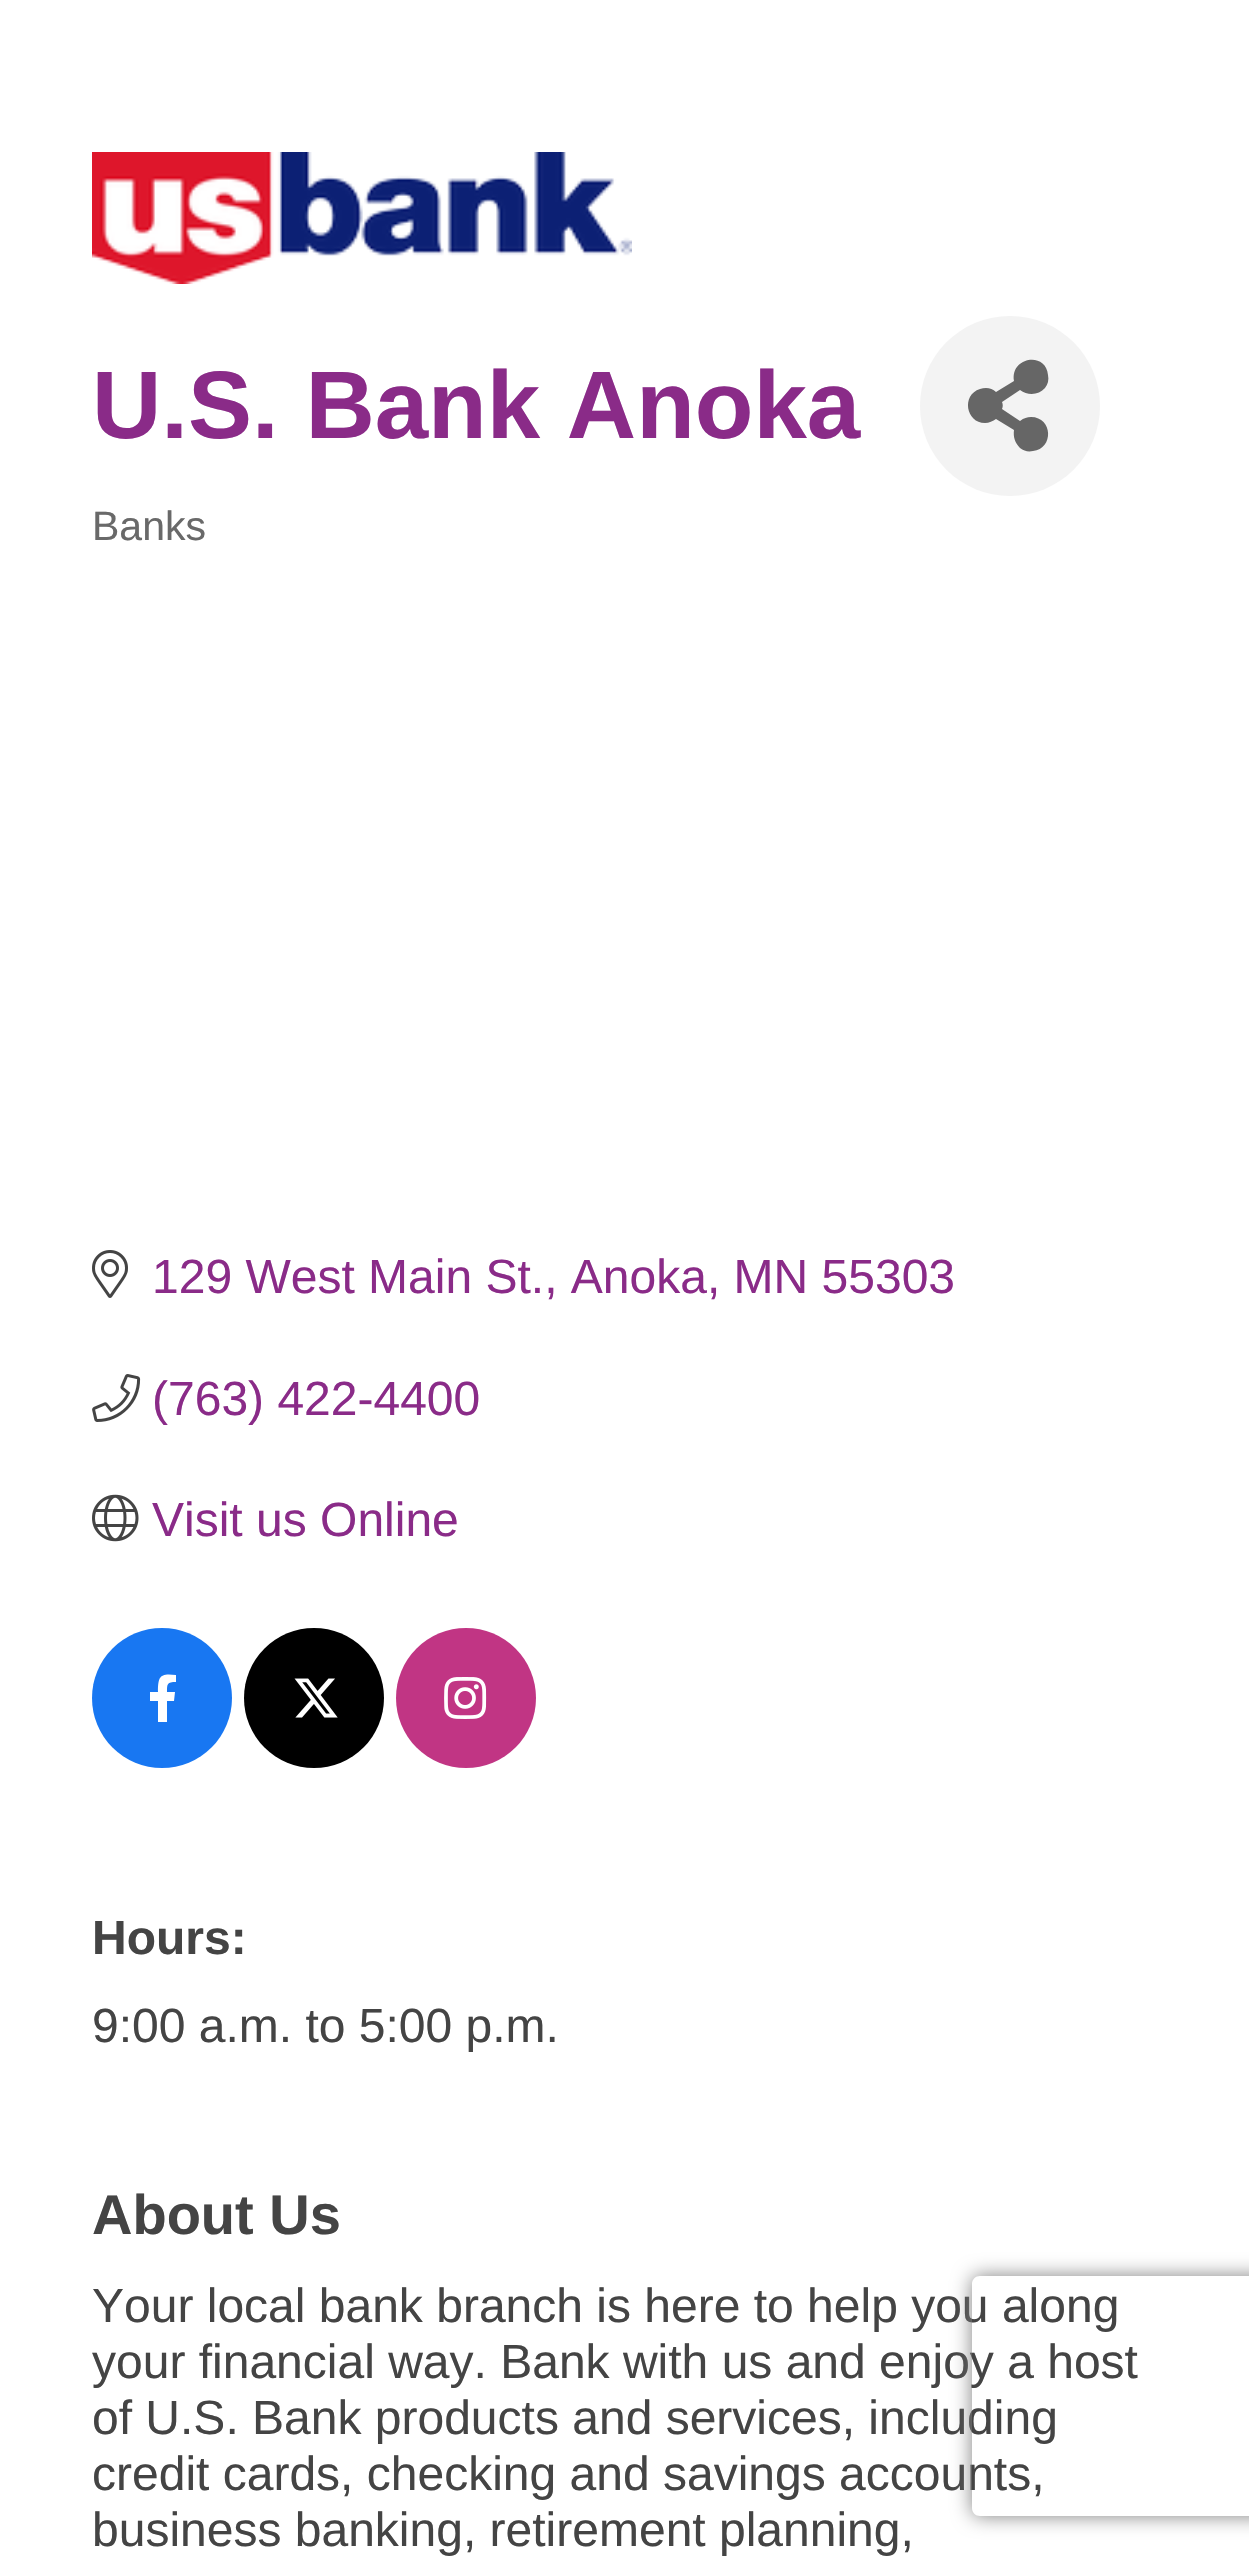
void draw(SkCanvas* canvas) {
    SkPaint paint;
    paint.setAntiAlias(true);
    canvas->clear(0xFFFFFFFF);
    canvas->drawImageRect(SkImages::DeferredFromEncodedData(SkData::MakeFromFileName("img1.png")), SkRect::MakeXYWH(92, 152, 540, 132), SkSamplingOptions());
    SkFont font1(fontMgr->matchFamilyStyle("Liberation Sans", SkFontStyle::Bold()), 96);
    font1.setSubpixel(true);
    paint.setColor(0xFF8A2B88);
    canvas->drawString("U.S. Bank Anoka", 92, 438, font1, paint);
    paint.setColor(0xFFF3F3F3);
    canvas->drawCircle(1010, 406, 90, paint);
    paint.setColor(0xFF666666);
    canvas->drawPath(SkPathBuilder().moveTo(1031, 417).cubicTo(1053, 417, 1054, 449, 1033, 451).cubicTo(1028, 452, 1024, 451, 1020, 448).cubicTo(1015, 443, 1013, 437, 1014, 430).lineTo(996, 419).cubicTo(993, 421, 989, 423, 985, 423).cubicTo(966, 423, 961, 395, 980, 389).cubicTo(986, 387, 992, 388, 996, 392).lineTo(1014, 381).cubicTo(1010, 357, 1046, 351, 1048, 375).cubicTo(1049, 380, 1048, 384, 1045, 388).cubicTo(1039, 395, 1028, 396, 1020, 390).lineTo(1002, 402).cubicTo(1003, 404, 1003, 407, 1002, 409).lineTo(1020, 421).cubicTo(1024, 418, 1027, 417, 1031, 417).close().detach(), paint);
    SkFont font2(fontMgr->matchFamilyStyle("Liberation Sans", SkFontStyle::Normal()), 41);
    font2.setSubpixel(true);
    paint.setColor(0xFF696969);
    canvas->drawString("Banks", 92, 540, font2, paint);
    canvas->drawImageRect(SkImages::DeferredFromEncodedData(SkData::MakeFromFileName("img2.png")), SkRect::MakeXYWH(92, 1250, 36, 48), SkSamplingOptions());
    SkFont font3(fontMgr->matchFamilyStyle("Liberation Sans", SkFontStyle::Normal()), 48);
    font3.setSubpixel(true);
    paint.setColor(0xFF8A2B88);
    canvas->drawString("129 West Main St., Anoka, MN 55303", 152, 1293, font3, paint);
    canvas->drawImageRect(SkImages::DeferredFromEncodedData(SkData::MakeFromFileName("img3.png")), SkRect::MakeXYWH(92, 1374, 49, 48), SkSamplingOptions());
    canvas->drawString("(763) 422-4400", 152, 1415, font3, paint);
    canvas->drawImageRect(SkImages::DeferredFromEncodedData(SkData::MakeFromFileName("img4.png")), SkRect::MakeXYWH(92, 1494, 47, 48), SkSamplingOptions());
    canvas->drawString("Visit us Online", 152, 1536, font3, paint);
    paint.setColor(0xFF1877F2);
    canvas->drawCircle(162, 1698, 70, paint);
    paint.setColor(0xFFFFFFFF);
    canvas->drawPath(SkPathBuilder().moveTo(174, 1701).lineTo(167, 1701).lineTo(167, 1722).lineTo(158, 1722).lineTo(158, 1701).lineTo(150, 1701).lineTo(150, 1692).lineTo(158, 1692).cubicTo(158, 1676, 160, 1673, 176, 1675).lineTo(176, 1682).cubicTo(167, 1682, 167, 1684, 167, 1692).lineTo(175, 1692).close().detach(), paint);
    paint.setColor(0xFF000000);
    canvas->drawCircle(314, 1698, 70, paint);
    canvas->drawImageRect(SkImages::DeferredFromEncodedData(SkData::MakeFromFileName("img5.png")), SkRect::MakeXYWH(294, 1678, 44, 40), SkSamplingOptions());
    paint.setColor(0xFFC13584);
    canvas->drawCircle(466, 1698, 70, paint);
    canvas->drawImageRect(SkImages::DeferredFromEncodedData(SkData::MakeFromFileName("img6.png")), SkRect::MakeXYWH(444, 1677, 43, 42), SkSamplingOptions());
    SkFont font4(fontMgr->matchFamilyStyle("Liberation Sans", SkFontStyle::Bold()), 48);
    font4.setSubpixel(true);
    paint.setColor(0xFF444444);
    canvas->drawString("Hours:", 92, 1954, font4, paint);
    canvas->drawString("9:00 a.m. to 5:00 p.m.", 92, 2042, font3, paint);
    SkFont font5(fontMgr->matchFamilyStyle("Liberation Sans", SkFontStyle::Bold()), 56);
    font5.setSubpixel(true);
    canvas->drawString("About Us", 92, 2234, font5, paint);
    canvas->drawString("Your local bank branch is here to help you along", 92, 2322, font3, paint);
    canvas->drawString("your financial way. Bank with us and enjoy a host", 92, 2378, font3, paint);
    canvas->drawString("of U.S. Bank products and services, including", 92, 2434, font3, paint);
    canvas->drawString("credit cards, checking and savings accounts,", 92, 2490, font3, paint);
    canvas->drawString("business banking, retirement planning,", 92, 2546, font3, paint);
    canvas->save();
    canvas->clipPath(SkPathBuilder(SkPathFillType::kEvenOdd).moveTo(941, 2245).lineTo(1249, 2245).lineTo(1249, 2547).lineTo(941, 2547).close().moveTo(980, 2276).lineTo(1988, 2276).cubicTo(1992.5f, 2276, 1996, 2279.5f, 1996, 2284).lineTo(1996, 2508).cubicTo(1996, 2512.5f, 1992.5f, 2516, 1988, 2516).lineTo(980, 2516).cubicTo(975.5f, 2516, 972, 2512.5f, 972, 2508).lineTo(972, 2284).cubicTo(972, 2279.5f, 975.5f, 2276, 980, 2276).close().detach(), true);
    paint.setColor(0xFF808080);
    paint.setMaskFilter(SkMaskFilter::MakeBlur(kNormal_SkBlurStyle, 10));
    canvas->drawRoundRect(SkRect::MakeXYWH(972, 2276, 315, 240), 8, 8, paint);
    paint.setMaskFilter(nullptr);
    canvas->restore();
}
